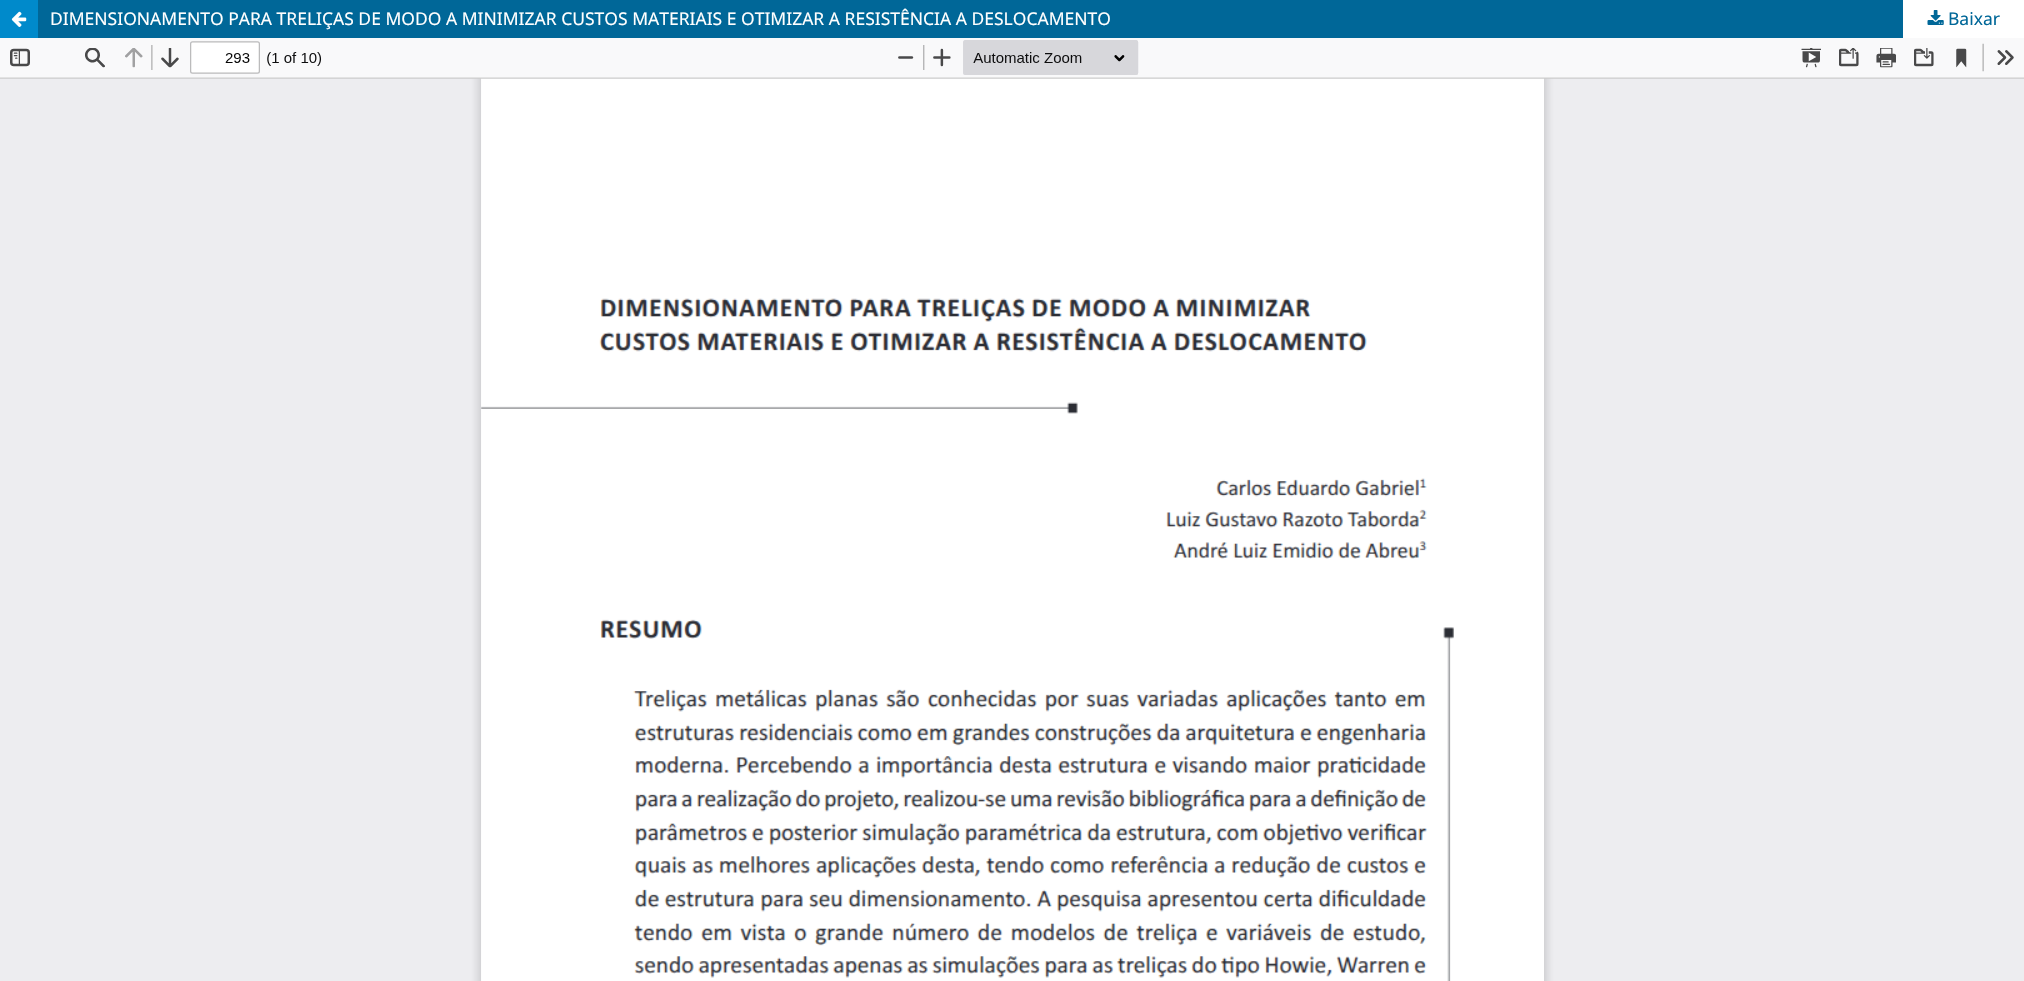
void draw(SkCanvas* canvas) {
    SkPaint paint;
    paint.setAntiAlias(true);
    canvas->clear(0xFFFFFFFF);
    paint.setColor(0xFF006798);
    canvas->drawRect(SkRect::MakeXYWH(38, 0, 1865, 38), paint);
    paint.setColor(0xFF008ACB);
    canvas->drawRect(SkRect::MakeXYWH(0, 0, 38, 38), paint);
    canvas->drawImageRect(SkImages::DeferredFromEncodedData(SkData::MakeFromFileName("img1.png")), SkRect::MakeXYWH(11, 11, 16, 16), SkSamplingOptions());
    SkFont font1(fontMgr->matchFamilyStyle("Noto Sans", SkFontStyle::Normal()), 17.5f);
    font1.setSubpixel(true);
    paint.setColor(0xFFFFFFFF);
    canvas->drawString("DIMENSIONAMENTO PARA TRELIÇAS DE MODO A MINIMIZAR CUSTOS MATERIAIS E OTIMIZAR A RESISTÊNCIA A DESLOCAMENTO", 50, 25, font1, paint);
    canvas->drawImageRect(SkImages::DeferredFromEncodedData(SkData::MakeFromFileName("img2.png")), SkRect::MakeXYWH(1927, 10, 17, 15), SkSamplingOptions());
    paint.setColor(0xFF006798);
    canvas->drawString("Baixar", 1948, 25, font1, paint);
    canvas->drawImageRect(SkImages::DeferredFromEncodedData(SkData::MakeFromFileName("img3.png")), SkRect::MakeXYWH(0, 38, 2024, 943), SkSamplingOptions());
}
